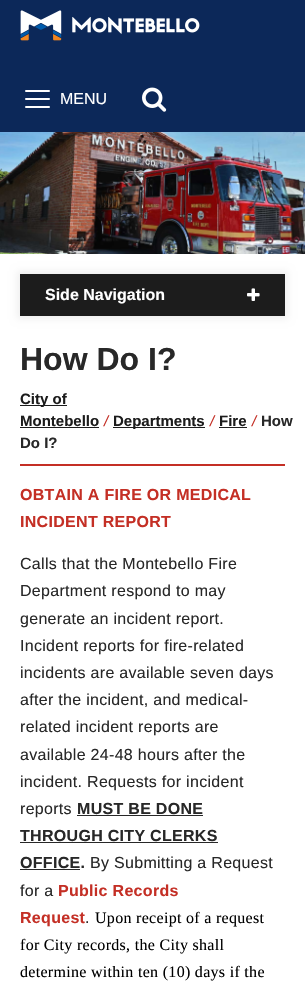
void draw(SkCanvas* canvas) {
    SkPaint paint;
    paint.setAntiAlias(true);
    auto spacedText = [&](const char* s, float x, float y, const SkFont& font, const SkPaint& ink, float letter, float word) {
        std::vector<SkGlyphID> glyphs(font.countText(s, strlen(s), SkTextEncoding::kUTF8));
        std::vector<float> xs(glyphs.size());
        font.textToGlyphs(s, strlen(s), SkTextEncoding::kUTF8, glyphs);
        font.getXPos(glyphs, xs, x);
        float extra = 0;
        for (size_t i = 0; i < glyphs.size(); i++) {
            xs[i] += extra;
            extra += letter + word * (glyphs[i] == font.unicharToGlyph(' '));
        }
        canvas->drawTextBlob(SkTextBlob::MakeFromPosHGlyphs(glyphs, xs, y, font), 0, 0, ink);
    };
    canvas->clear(0xFFFFFFFF);
    paint.setColor(0xFF0C2859);
    canvas->drawRect(SkRect::MakeXYWH(0, 0, 305, 132), paint);
    canvas->drawImageRect(SkImages::DeferredFromEncodedData(SkData::MakeFromFileName("img1.png")), SkRect::MakeXYWH(20, 10, 180, 31), SkSamplingOptions());
    paint.setColor(0xFFFFFFFF);
    canvas->drawRoundRect(SkRect::MakeXYWH(25, 98, 25, 2), 1, 1, paint);
    canvas->drawRoundRect(SkRect::MakeXYWH(25, 90, 25, 2), 1, 1, paint);
    canvas->drawRoundRect(SkRect::MakeXYWH(25, 106, 25, 2), 1, 1, paint);
    SkFont font1(fontMgr->matchFamilyStyle("Liberation Sans", SkFontStyle::Normal()), 16);
    font1.setSubpixel(true);
    canvas->drawString("MENU", 60, 104, font1, paint);
    canvas->drawImageRect(SkImages::DeferredFromEncodedData(SkData::MakeFromFileName("img2.png")), SkRect::MakeXYWH(142, 87, 25, 25), SkSamplingOptions());
    canvas->drawImageRect(SkImages::DeferredFromEncodedData(SkData::MakeFromFileName("img3.png")), SkRect::MakeXYWH(0, 132, 305, 122), SkSamplingOptions());
    paint.setColor(0x0F000000);
    paint.setMaskFilter(SkMaskFilter::MakeBlur(kNormal_SkBlurStyle, 3.5f));
    canvas->drawRect(SkRect::MakeXYWH(17, 271, 271, 48), paint);
    paint.setMaskFilter(nullptr);
    paint.setColor(0xFF1C1C1C);
    canvas->drawRect(SkRect::MakeXYWH(20, 274, 265, 42), paint);
    SkFont font2(fontMgr->matchFamilyStyle("Liberation Sans", SkFontStyle::Bold()), 16);
    font2.setSubpixel(true);
    paint.setColor(0xFFFFFFFF);
    canvas->drawString("Side Navigation", 45, 300, font2, paint);
    canvas->drawImageRect(SkImages::DeferredFromEncodedData(SkData::MakeFromFileName("img4.png")), SkRect::MakeXYWH(247, 288, 13, 13), SkSamplingOptions());
    SkFont font3(fontMgr->matchFamilyStyle("Liberation Sans", SkFontStyle::Bold()), 32);
    font3.setSubpixel(true);
    paint.setColor(0xFF282828);
    canvas->drawString("How Do I?", 20, 370, font3, paint);
    paint.setColor(0xFFC42F25);
    canvas->drawRect(SkRect::MakeXYWH(20, 464, 265, 2), paint);
    paint.setColor(0xFF1C1C1C);
    canvas->drawRect(SkRect::MakeXYWH(20, 405, 47, 1), paint);
    SkFont font4(fontMgr->matchFamilyStyle("Liberation Sans", SkFontStyle::Bold()), 15);
    font4.setSubpixel(true);
    canvas->drawString("City of", 20, 404, font4, paint);
    canvas->drawString("Montebello", 20, 426, font4, paint);
    canvas->drawRect(SkRect::MakeXYWH(20, 427, 79, 1), paint);
    SkFont font5(fontMgr->matchFamilyStyle("Liberation Sans", SkFontStyle::Italic()), 15);
    font5.setSubpixel(true);
    paint.setColor(0xFFC42F25);
    canvas->drawString("/", 104, 426, font5, paint);
    paint.setColor(0xFF1C1C1C);
    canvas->drawRect(SkRect::MakeXYWH(113, 427, 92, 1), paint);
    canvas->drawString("Departments", 113, 426, font4, paint);
    paint.setColor(0xFFC42F25);
    canvas->drawString("/", 210, 426, font5, paint);
    paint.setColor(0xFF1C1C1C);
    canvas->drawString("Fire", 219, 426, font4, paint);
    canvas->drawRect(SkRect::MakeXYWH(219, 427, 28, 1), paint);
    paint.setColor(0xFFC42F25);
    canvas->drawString("/", 252, 426, font5, paint);
    paint.setColor(0xFF282828);
    canvas->drawString("How", 261, 426, font4, paint);
    canvas->drawString("Do I?", 20, 448, font4, paint);
    paint.setColor(0xFFC42F25);
    spacedText("OBTAIN A FIRE OR MEDICAL", 20, 500, font2, paint, 0.3f, 0);
    spacedText("INCIDENT REPORT", 20, 527, font2, paint, 0.3f, 0);
    paint.setColor(0xFF282828);
    spacedText("Calls that the Montebello Fire", 20, 569, font1, paint, 0.3f, 0);
    spacedText("Department respond to may", 20, 596, font1, paint, 0.3f, 0);
    spacedText("generate an incident report.", 20, 624, font1, paint, 0.3f, 0);
    spacedText("Incident reports for fire-related", 20, 651, font1, paint, 0.3f, 0);
    spacedText("incidents are available seven days", 20, 678, font1, paint, 0.3f, 0);
    spacedText("after the incident, and medical-", 20, 705, font1, paint, 0.3f, 0);
    spacedText("related incident reports are", 20, 732, font1, paint, 0.3f, 0);
    spacedText("available 24-48 hours after the", 20, 760, font1, paint, 0.3f, 0);
    spacedText("incident. Requests for incident", 20, 787, font1, paint, 0.3f, 0);
    spacedText("reports", 20, 814, font1, paint, 0.3f, 0);
    spacedText("MUST BE DONE", 77, 814, font2, paint, 0.3f, 0);
    canvas->drawRect(SkRect::MakeXYWH(77, 815, 126, 1), paint);
    spacedText("THROUGH CITY CLERKS", 20, 841, font2, paint, 0.3f, 0);
    canvas->drawRect(SkRect::MakeXYWH(20, 842, 198, 1), paint);
    spacedText("OFFICE.", 20, 868, font2, paint, 0.3f, 0);
    canvas->drawRect(SkRect::MakeXYWH(20, 869, 60, 1), paint);
    spacedText("By Submitting a Request", 90, 868, font1, paint, 0.3f, 0);
    spacedText("for a", 20, 896, font1, paint, 0.3f, 0);
    paint.setColor(0xFFC42F25);
    spacedText("Public Records", 58, 896, font2, paint, 0.3f, 0);
    spacedText("Request", 20, 923, font2, paint, 0.3f, 0);
    paint.setColor(0xFF282828);
    spacedText(".", 85, 923, font1, paint, 0.3f, 0);
    SkFont font6(fontMgr->matchFamilyStyle("Liberation Serif", SkFontStyle::Normal()), 16);
    font6.setSubpixel(true);
    paint.setColor(0xFF000000);
    spacedText("Upon receipt of a request", 95, 923, font6, paint, 0.3f, 0);
    spacedText("for City records, the City shall", 20, 950, font6, paint, 0.3f, 0);
    spacedText("determine within ten (10) days if the", 20, 977, font6, paint, 0.3f, 0);
}
